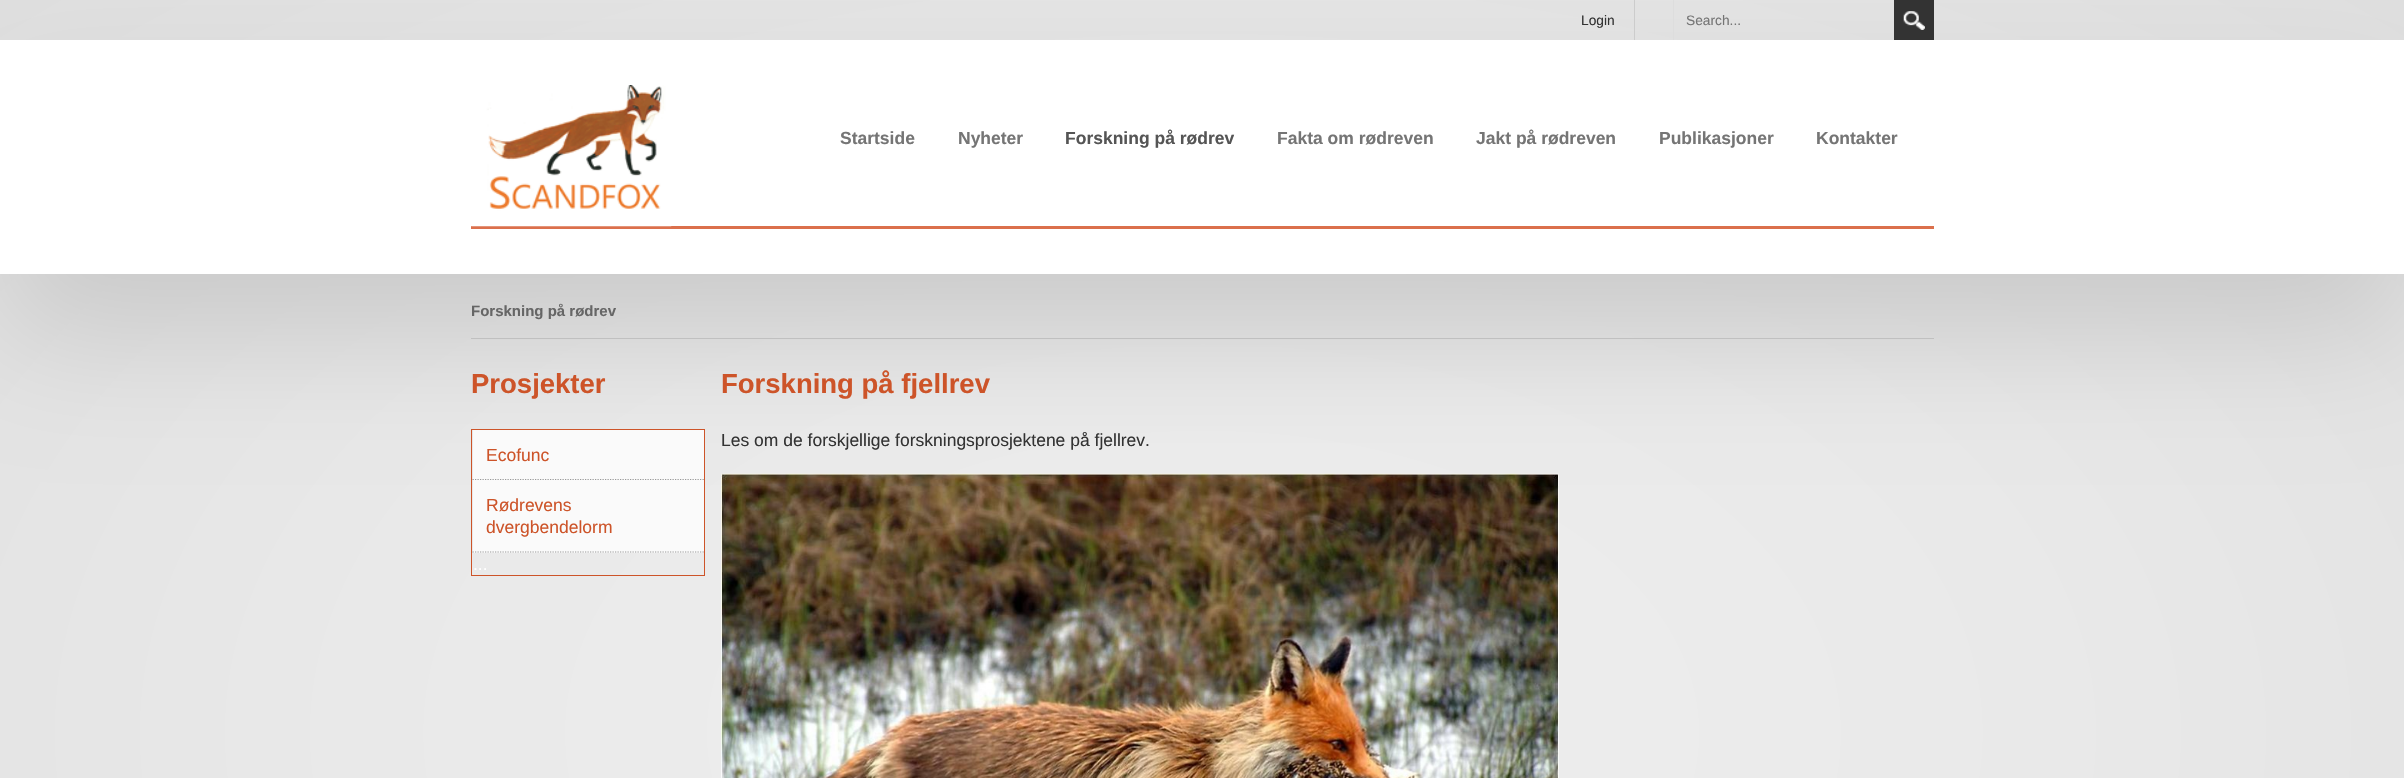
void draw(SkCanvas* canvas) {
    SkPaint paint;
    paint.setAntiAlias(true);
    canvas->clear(0xFFFFFFFF);
    {
        const SkColor colors[] = {0xFFEFEFEF, 0xFFE9E9E9, 0xFFDFDFDF};
        const float stops[] = {0, 0.5f, 1};
        SkMatrix m = SkMatrix::Translate(1203, 733).preScale(1701, 1036);
        paint.setShader(SkGradientShader::MakeRadial({0, 0}, 1, colors, stops, 3, SkTileMode::kClamp, 0, &m));
        paint.setAlpha(255);
    }
    canvas->drawRect(SkRect::MakeXYWH(0, 0, 2404, 778), paint);
    paint.setShader(nullptr);
    paint.setColor(0xFFCACACA);
    paint.setMaskFilter(SkMaskFilter::MakeBlur(kNormal_SkBlurStyle, 62.5f));
    canvas->drawRect(SkRect::MakeXYWH(1, 103, 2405, 233), paint);
    paint.setMaskFilter(nullptr);
    paint.setColor(0xFFCCCCCC);
    canvas->drawRect(SkRect::MakeXYWH(1634, 0, 1, 40), paint);
    SkFont font1(fontMgr->matchFamilyStyle("Liberation Sans", SkFontStyle::Normal()), 13.75f);
    font1.setSubpixel(true);
    paint.setColor(0xFF333333);
    canvas->drawString("Login", 1581, 25, font1, paint);
    paint.setColor(0xFFDDDDDD);
    canvas->drawRect(SkRect::MakeXYWH(1673, 0, 1, 40), paint);
    paint.setColor(0xFF757575);
    canvas->drawString("Search...", 1686, 25, font1, paint);
    paint.setColor(0xFF333333);
    canvas->drawRect(SkRect::MakeXYWH(1894, 0, 40, 40), paint);
    canvas->drawImageRect(SkImages::DeferredFromEncodedData(SkData::MakeFromFileName("img1.png")), SkRect::MakeXYWH(1903, 11, 22, 19), SkSamplingOptions());
    paint.setColor(0xFFFFFFFF);
    canvas->drawRect(SkRect::MakeXYWH(0, 40, 2404, 234), paint);
    paint.setColor(0xFFDB704C);
    canvas->drawRect(SkRect::MakeXYWH(471, 226, 1463, 3), paint);
    canvas->drawImageRect(SkImages::DeferredFromEncodedData(SkData::MakeFromFileName("img2.png")), SkRect::MakeXYWH(471, 85, 201, 142), SkSamplingOptions());
    SkFont font2(fontMgr->matchFamilyStyle("Liberation Sans", SkFontStyle::Bold()), 17.5f);
    font2.setSubpixel(true);
    paint.setColor(0xFF757575);
    canvas->drawString("Startside", 840, 144, font2, paint);
    canvas->drawString("Nyheter", 958, 144, font2, paint);
    paint.setColor(0xFF555555);
    canvas->drawString("Forskning på rødrev", 1065, 144, font2, paint);
    paint.setColor(0xFF757575);
    canvas->drawString("Fakta om rødreven", 1277, 144, font2, paint);
    canvas->drawString("Jakt på rødreven", 1476, 144, font2, paint);
    canvas->drawString("Publikasjoner", 1659, 144, font2, paint);
    canvas->drawString("Kontakter", 1816, 144, font2, paint);
    paint.setColor(0xFFC0C0C0);
    canvas->drawRect(SkRect::MakeXYWH(471, 338, 1463, 1), paint);
    SkFont font3(fontMgr->matchFamilyStyle("Liberation Sans", SkFontStyle::Bold()), 15);
    font3.setSubpixel(true);
    paint.setColor(0xFF666666);
    canvas->drawString("Forskning på rødrev", 471, 316, font3, paint);
    SkFont font4(fontMgr->matchFamilyStyle("Liberation Sans", SkFontStyle::Bold()), 27.5f);
    font4.setSubpixel(true);
    paint.setColor(0xFFCD5429);
    canvas->drawString("Prosjekter", 471, 393, font4, paint);
    paint.setStyle(SkPaint::kStroke_Style);
    paint.setStrokeWidth(1);
    canvas->drawRect(SkRect::MakeXYWH(471.5f, 429.5f, 233, 146), paint);
    paint.setStyle(SkPaint::kFill_Style);
    paint.setColor(0xFFFAFAFA);
    canvas->drawRect(SkRect::MakeXYWH(473, 430, 231, 50), paint);
    paint.setStyle(SkPaint::kStroke_Style);
    paint.setStrokeWidth(1.2f);
    paint.setColor(0xFF999999);
    paint.setPathEffect(SkDashPathEffect::Make({{1.25f, 1.25f}}, 0));
    canvas->drawPath(SkPathBuilder().moveTo(472.5f, 479.5f).lineTo(704, 479.5f).detach(), paint);
    paint.setPathEffect(nullptr);
    SkFont font5(fontMgr->matchFamilyStyle("Liberation Sans", SkFontStyle::Normal()), 17.5f);
    font5.setSubpixel(true);
    paint.setStyle(SkPaint::kFill_Style);
    paint.setColor(0xFFCD5429);
    canvas->drawString("Ecofunc", 486, 461, font5, paint);
    paint.setColor(0xFFFAFAFA);
    canvas->drawRect(SkRect::MakeXYWH(473, 480, 231, 73), paint);
    paint.setStyle(SkPaint::kStroke_Style);
    paint.setColor(0xFF999999);
    paint.setPathEffect(SkDashPathEffect::Make({{1.25f, 1.25f}}, 0));
    canvas->drawPath(SkPathBuilder().moveTo(472.5f, 552).lineTo(704, 552).detach(), paint);
    paint.setPathEffect(nullptr);
    paint.setStyle(SkPaint::kFill_Style);
    paint.setColor(0xFFCD5429);
    canvas->drawString("Rødrevens", 486, 511, font5, paint);
    canvas->drawString("dvergbendelorm", 486, 533, font5, paint);
    paint.setColor(0xFFFFFFFF);
    canvas->drawString("...", 473, 570, font5, paint);
    paint.setColor(0xFFCD5429);
    canvas->drawString("Forskning på fjellrev", 721, 393, font4, paint);
    paint.setColor(0xFF333333);
    canvas->drawString("Les om de forskjellige forskningsprosjektene på fjellrev.", 721, 446, font5, paint);
    canvas->drawImageRect(SkImages::DeferredFromEncodedData(SkData::MakeFromFileName("img3.png")), SkRect::MakeXYWH(721, 473, 838, 305), SkSamplingOptions());
}
